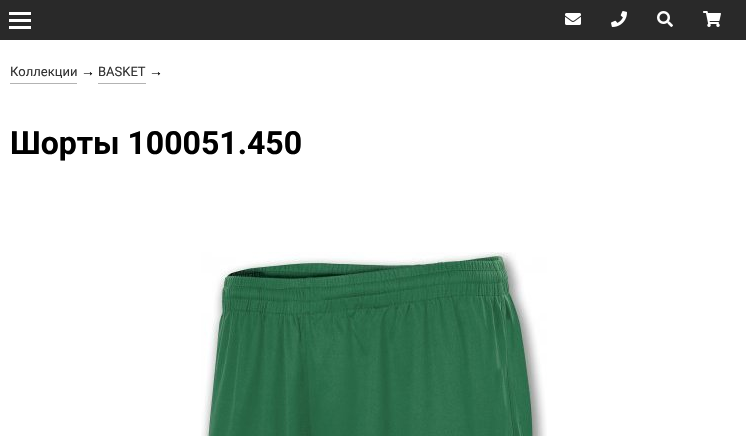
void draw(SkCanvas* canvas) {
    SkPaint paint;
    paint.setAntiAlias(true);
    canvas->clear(0xFFFFFFFF);
    paint.setColor(0xFF292929);
    canvas->drawRect(SkRect::MakeXYWH(0, 0, 746, 40), paint);
    paint.setColor(0xFFFFFFFF);
    canvas->drawRect(SkRect::MakeXYWH(9, 19, 22, 3), paint);
    canvas->drawRect(SkRect::MakeXYWH(9, 12, 22, 3), paint);
    canvas->drawRect(SkRect::MakeXYWH(9, 26, 22, 3), paint);
    canvas->drawImageRect(SkImages::DeferredFromEncodedData(SkData::MakeFromFileName("img1.png")), SkRect::MakeXYWH(565, 13, 16, 12), SkSamplingOptions());
    canvas->drawImageRect(SkImages::DeferredFromEncodedData(SkData::MakeFromFileName("img2.png")), SkRect::MakeXYWH(611, 11, 16, 16), SkSamplingOptions());
    canvas->drawImageRect(SkImages::DeferredFromEncodedData(SkData::MakeFromFileName("img3.png")), SkRect::MakeXYWH(657, 11, 16, 16), SkSamplingOptions());
    canvas->drawImageRect(SkImages::DeferredFromEncodedData(SkData::MakeFromFileName("img4.png")), SkRect::MakeXYWH(703, 11, 18, 16), SkSamplingOptions());
    paint.setColor(0xFFB3B3B3);
    canvas->drawRect(SkRect::MakeXYWH(10, 83, 67, 1), paint);
    SkFont font1(fontMgr->matchFamilyStyle("Roboto", SkFontStyle::Normal()), 13);
    font1.setSubpixel(true);
    paint.setColor(0xFF333333);
    canvas->drawString("Коллекции", 10, 76, font1, paint);
    SkFont font2(fontMgr->matchFamilyStyle("Liberation Sans", SkFontStyle::Normal()), 14);
    font2.setSubpixel(true);
    paint.setColor(0xFF000000);
    canvas->drawString("→", 81, 76, font2, paint);
    paint.setColor(0xFFB3B3B3);
    canvas->drawRect(SkRect::MakeXYWH(98, 83, 48, 1), paint);
    paint.setColor(0xFF333333);
    canvas->drawString("BASKET", 98, 76, font1, paint);
    paint.setColor(0xFF000000);
    canvas->drawString("→", 149, 76, font2, paint);
    SkFont font3(fontMgr->matchFamilyStyle("Roboto", SkFontStyle::Bold()), 32);
    font3.setSubpixel(true);
    canvas->drawString("Шорты 100051.450", 10, 154, font3, paint);
    canvas->drawImageRect(SkImages::DeferredFromEncodedData(SkData::MakeFromFileName("img5.png")), SkRect::MakeXYWH(201, 252, 346, 184), SkSamplingOptions());
}
